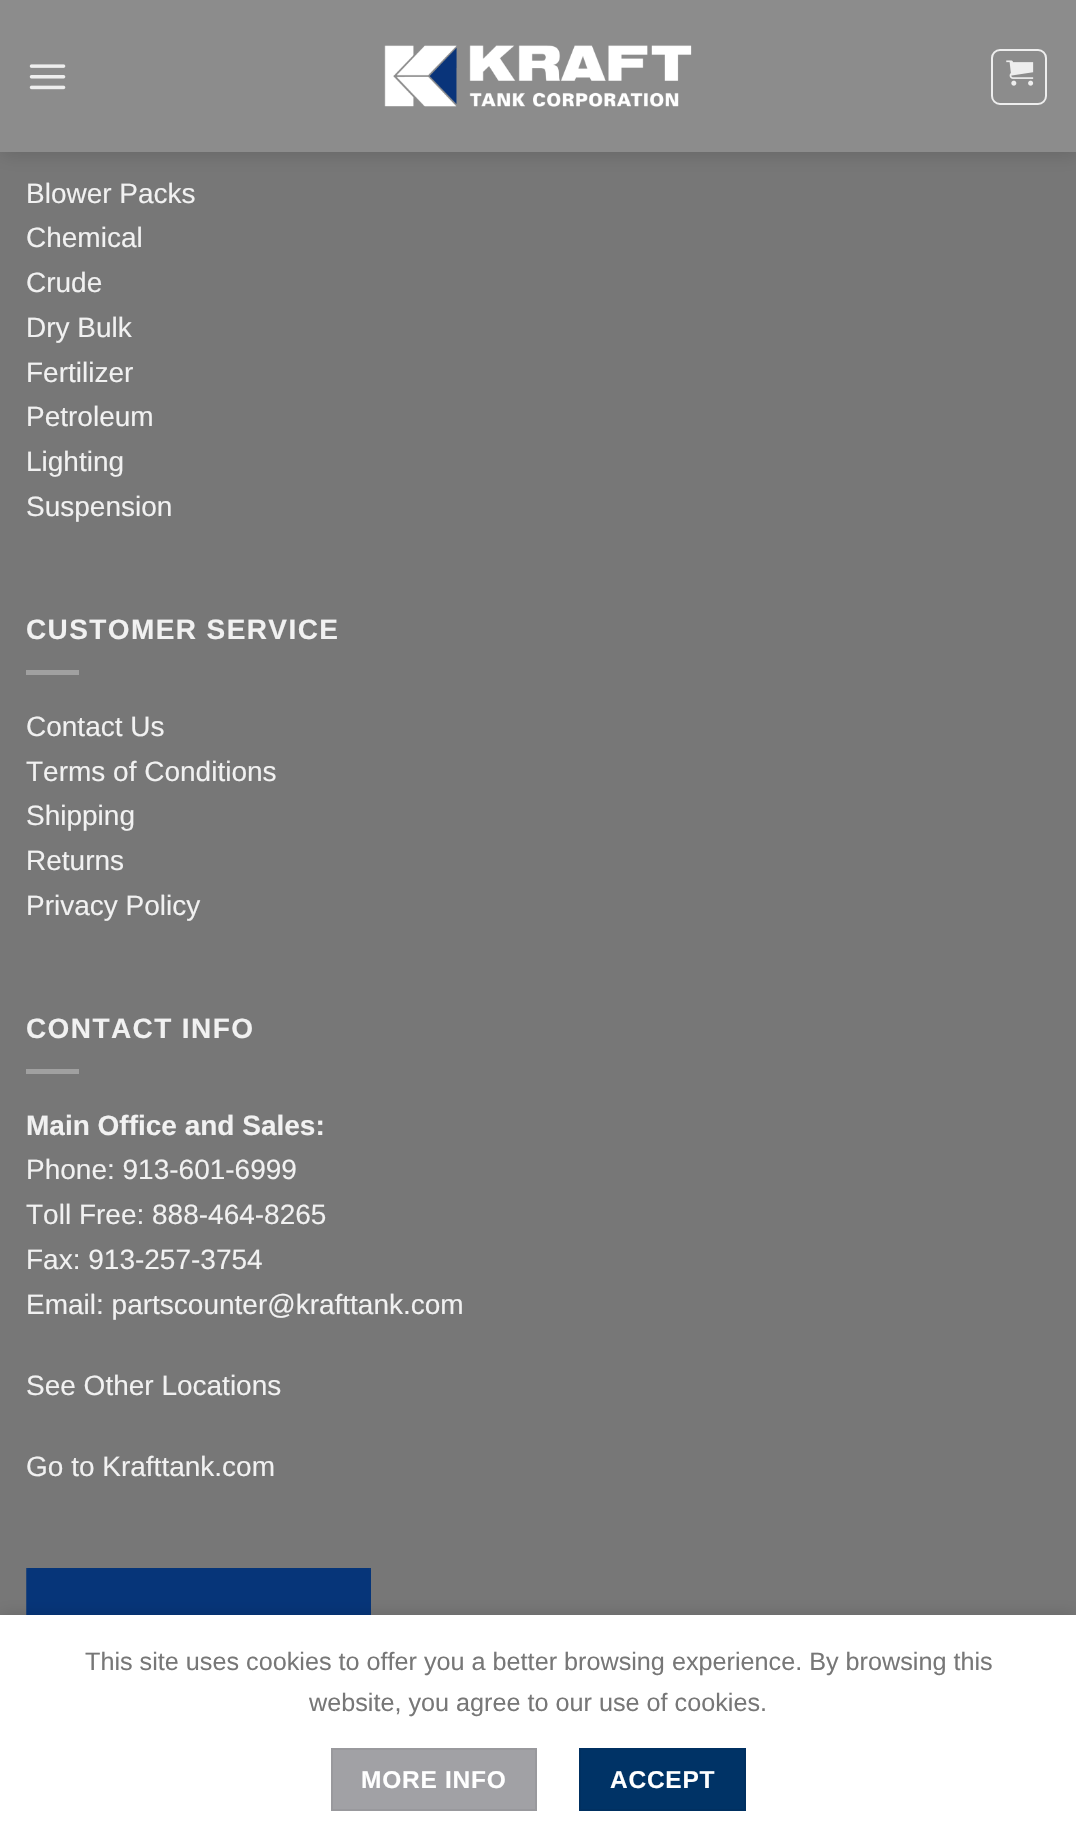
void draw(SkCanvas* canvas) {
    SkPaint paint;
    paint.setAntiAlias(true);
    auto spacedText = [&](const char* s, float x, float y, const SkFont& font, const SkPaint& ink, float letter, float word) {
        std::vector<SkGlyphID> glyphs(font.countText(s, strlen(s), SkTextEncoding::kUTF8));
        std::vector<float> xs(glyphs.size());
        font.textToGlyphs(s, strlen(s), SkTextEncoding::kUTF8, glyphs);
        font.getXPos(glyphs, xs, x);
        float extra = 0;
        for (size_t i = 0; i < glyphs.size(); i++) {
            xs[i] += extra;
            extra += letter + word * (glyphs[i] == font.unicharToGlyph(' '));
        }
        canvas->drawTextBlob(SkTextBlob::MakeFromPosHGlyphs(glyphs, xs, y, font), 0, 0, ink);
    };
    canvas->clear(0xFF777777);
    paint.setColor(0x26000000);
    paint.setMaskFilter(SkMaskFilter::MakeBlur(kNormal_SkBlurStyle, 9));
    canvas->drawRect(SkRect::MakeXYWH(2, 2, 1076, 152), paint);
    paint.setMaskFilter(nullptr);
    paint.setColor(0xFF8C8C8C);
    canvas->drawRect(SkRect::MakeXYWH(0, 0, 1076, 152), paint);
    canvas->drawImageRect(SkImages::DeferredFromEncodedData(SkData::MakeFromFileName("img1.png")), SkRect::MakeXYWH(29, 64, 37, 26), SkSamplingOptions());
    canvas->drawImageRect(SkImages::DeferredFromEncodedData(SkData::MakeFromFileName("img2.png")), SkRect::MakeXYWH(384, 45, 308, 62), SkSamplingOptions());
    paint.setStyle(SkPaint::kStroke_Style);
    paint.setStrokeWidth(2);
    paint.setColor(0xFFEEEEEE);
    canvas->drawRoundRect(SkRect::MakeXYWH(992, 50, 54, 54), 8, 8, paint);
    canvas->drawImageRect(SkImages::DeferredFromEncodedData(SkData::MakeFromFileName("img3.png")), SkRect::MakeXYWH(1006, 60, 28, 26), SkSamplingOptions());
    SkFont font1(fontMgr->matchFamilyStyle("Liberation Sans", SkFontStyle::Normal()), 28);
    font1.setSubpixel(true);
    paint.setStyle(SkPaint::kFill_Style);
    paint.setColor(0xFFF1F1F1);
    canvas->drawString("Blower Packs", 26, 203, font1, paint);
    canvas->drawString("Chemical", 26, 247, font1, paint);
    canvas->drawString("Crude", 26, 292, font1, paint);
    canvas->drawString("Dry Bulk", 26, 337, font1, paint);
    canvas->drawString("Fertilizer", 26, 382, font1, paint);
    canvas->drawString("Petroleum", 26, 426, font1, paint);
    canvas->drawString("Lighting", 26, 471, font1, paint);
    canvas->drawString("Suspension", 26, 516, font1, paint);
    SkFont font2(fontMgr->matchFamilyStyle("Liberation Sans", SkFontStyle::Bold()), 28);
    font2.setSubpixel(true);
    spacedText("CUSTOMER SERVICE", 26, 639, font2, paint, 1.4f, 0);
    paint.setColor(0xFFA0A0A0);
    canvas->drawRect(SkRect::MakeXYWH(26, 670, 53, 5), paint);
    paint.setColor(0xFFF1F1F1);
    canvas->drawString("Contact Us", 26, 736, font1, paint);
    canvas->drawString("Terms of Conditions", 26, 781, font1, paint);
    canvas->drawString("Shipping", 26, 825, font1, paint);
    canvas->drawString("Returns", 26, 870, font1, paint);
    canvas->drawString("Privacy Policy", 26, 915, font1, paint);
    spacedText("CONTACT INFO", 26, 1038, font2, paint, 1.4f, 0);
    paint.setColor(0xFFA0A0A0);
    canvas->drawRect(SkRect::MakeXYWH(26, 1069, 53, 5), paint);
    paint.setColor(0xFFF1F1F1);
    canvas->drawString("Main Office and Sales:", 26, 1135, font2, paint);
    canvas->drawString("Phone: 913-601-6999", 26, 1179, font1, paint);
    canvas->drawString("Toll Free: 888-464-8265", 26, 1224, font1, paint);
    canvas->drawString("Fax: 913-257-3754", 26, 1269, font1, paint);
    canvas->drawString("Email: partscounter@krafttank.com", 26, 1314, font1, paint);
    canvas->drawString("See Other Locations", 26, 1395, font1, paint);
    canvas->drawString("Go to Krafttank.com", 26, 1476, font1, paint);
    canvas->drawImageRect(SkImages::DeferredFromEncodedData(SkData::MakeFromFileName("img4.png")), SkRect::MakeXYWH(26, 1568, 345, 47), SkSamplingOptions());
    paint.setColor(0x24000000);
    paint.setMaskFilter(SkMaskFilter::MakeBlur(kNormal_SkBlurStyle, 8));
    canvas->drawRect(SkRect::MakeXYWH(0, 1615, 1076, 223), paint);
    paint.setMaskFilter(nullptr);
    paint.setColor(0xFFFFFFFF);
    canvas->drawRect(SkRect::MakeXYWH(0, 1615, 1076, 222), paint);
    SkFont font3(fontMgr->matchFamilyStyle("Liberation Sans", SkFontStyle::Normal()), 25.2f);
    font3.setSubpixel(true);
    paint.setColor(0xFF777777);
    canvas->drawString("This site uses cookies to offer you a better browsing experience. By browsing this", 85, 1670, font3, paint);
    canvas->drawString("website, you agree to our use of cookies.", 309, 1711, font3, paint);
    paint.setColor(0xFFA1A1A5);
    canvas->drawRect(SkRect::MakeXYWH(332, 1749, 204, 61), paint);
    paint.setStyle(SkPaint::kStroke_Style);
    paint.setColor(0xFF99999D);
    canvas->drawRect(SkRect::MakeXYWH(332, 1749, 204, 61), paint);
    SkFont font4(fontMgr->matchFamilyStyle("Liberation Sans", SkFontStyle::Bold()), 24.5f);
    font4.setSubpixel(true);
    paint.setStyle(SkPaint::kFill_Style);
    paint.setColor(0xFFFFFFFF);
    spacedText("MORE INFO", 361, 1788, font4, paint, 0.75f, 0);
    paint.setColor(0xFF003366);
    canvas->drawRect(SkRect::MakeXYWH(580, 1749, 165, 61), paint);
    paint.setStyle(SkPaint::kStroke_Style);
    paint.setColor(0xFF003061);
    canvas->drawRect(SkRect::MakeXYWH(580, 1749, 165, 61), paint);
    paint.setStyle(SkPaint::kFill_Style);
    paint.setColor(0xFFFFFFFF);
    spacedText("ACCEPT", 610, 1788, font4, paint, 0.75f, 0);
}
